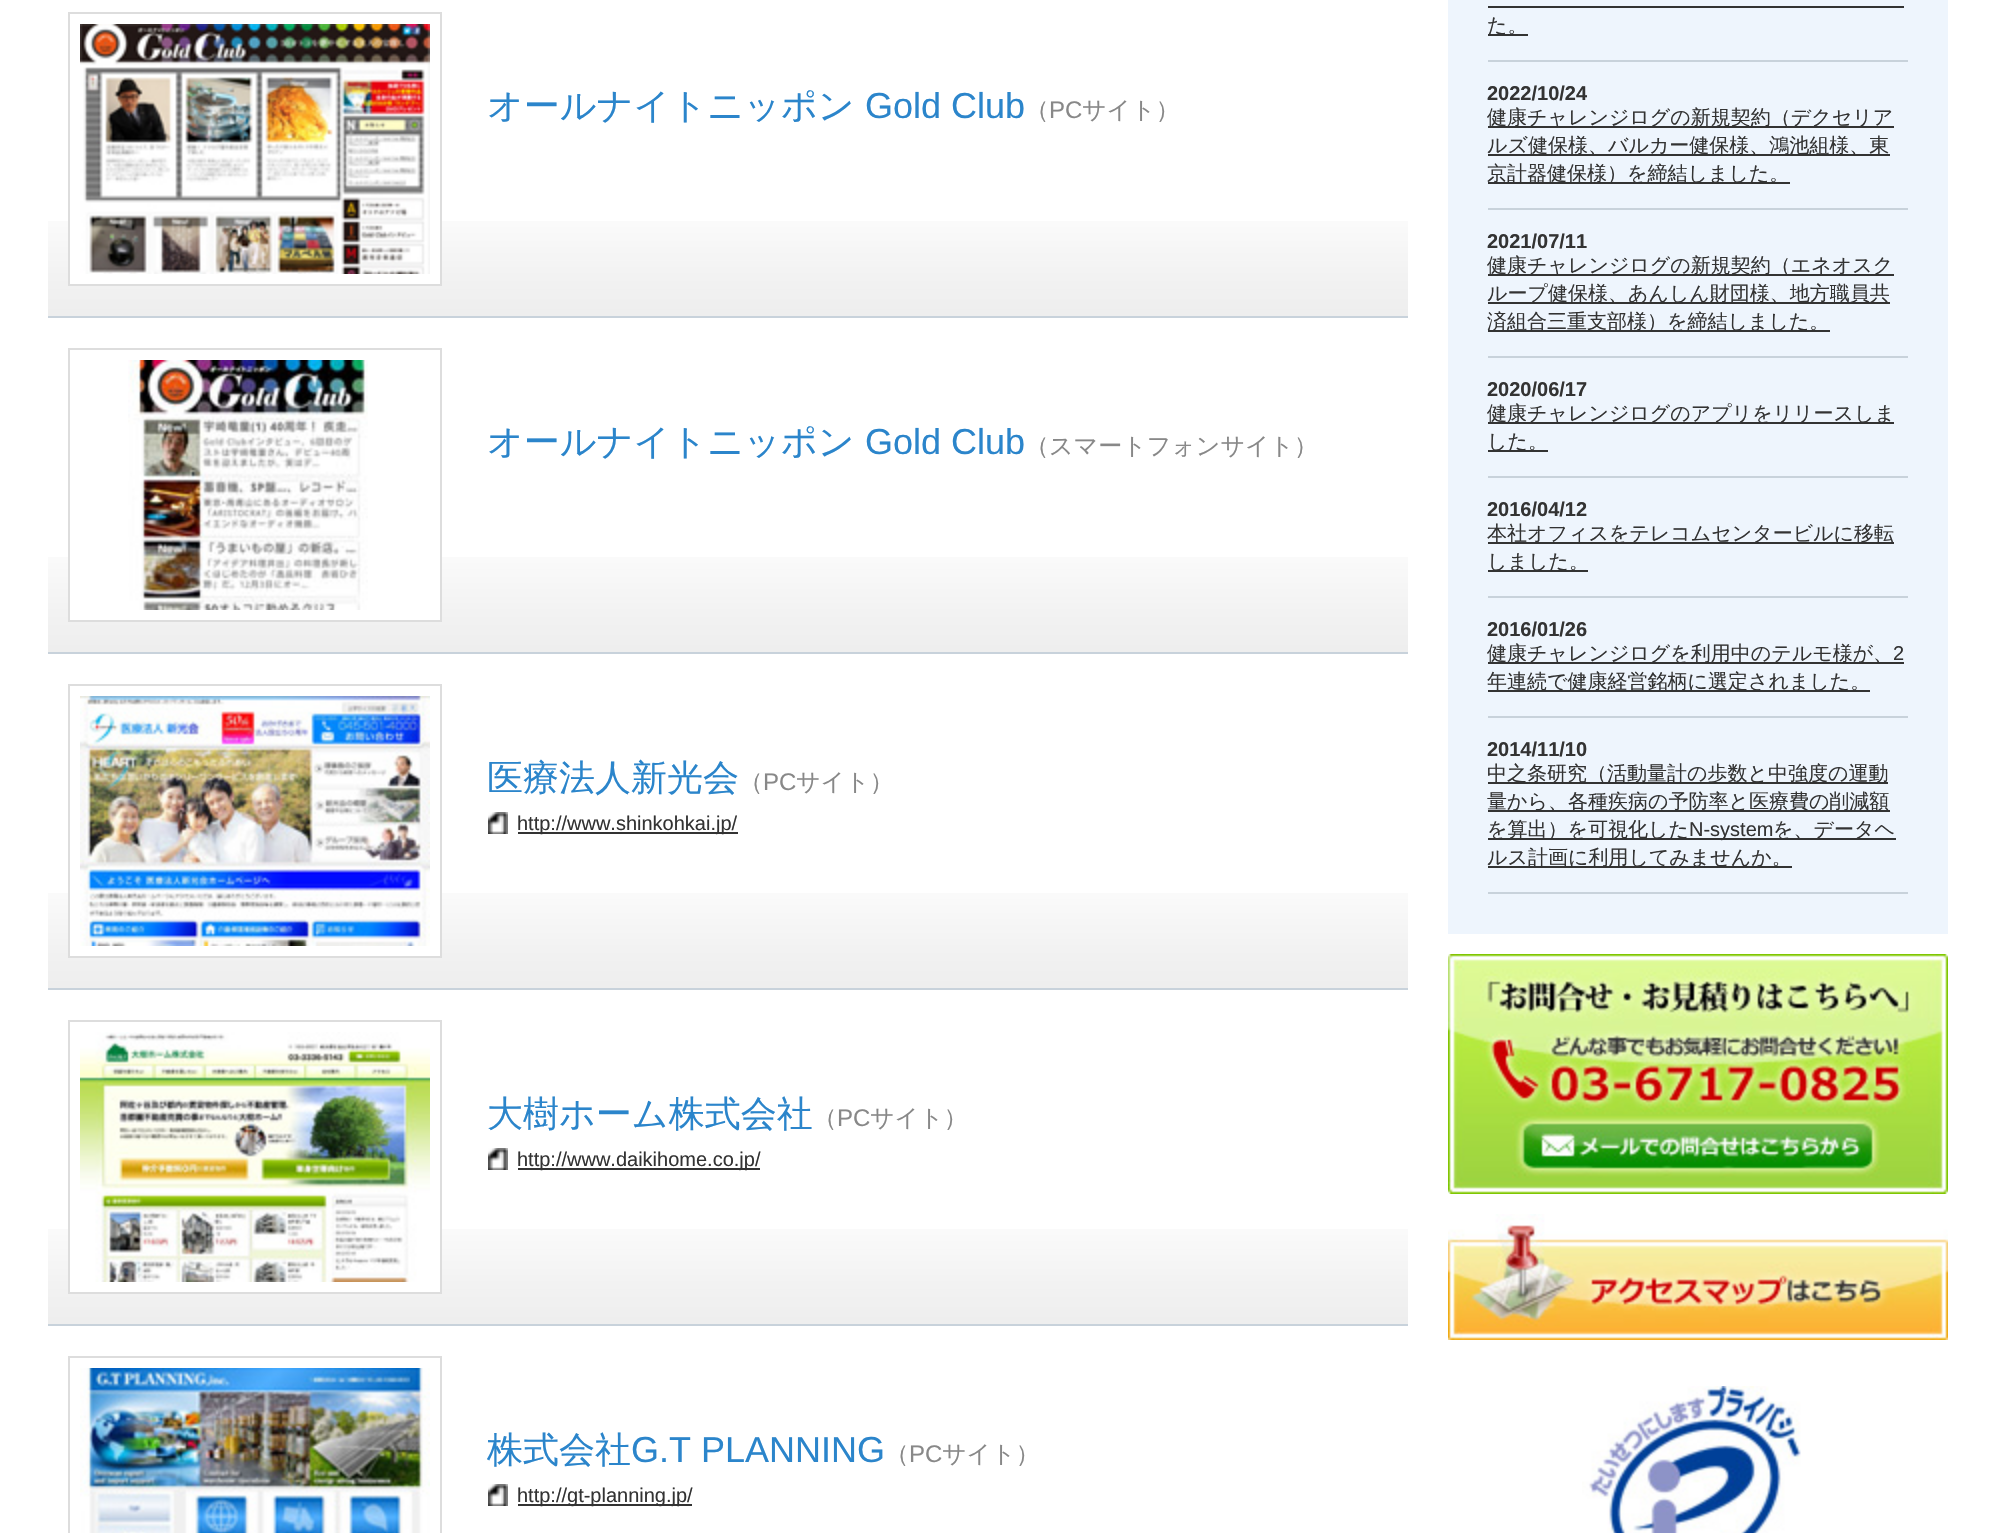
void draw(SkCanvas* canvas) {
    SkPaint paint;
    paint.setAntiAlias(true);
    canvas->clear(0xFFFFFFFF);
    canvas->drawImageRect(SkImages::DeferredFromEncodedData(SkData::MakeFromFileName("img1.png")), SkRect::MakeXYWH(48, 221, 1360, 95), SkSamplingOptions());
    paint.setColor(0xFFC8D2DB);
    canvas->drawRect(SkRect::MakeXYWH(48, 316, 1360, 2), paint);
    paint.setColor(0xFFFFFFFF);
    canvas->drawRect(SkRect::MakeXYWH(70, 221, 370, 63), paint);
    paint.setStyle(SkPaint::kStroke_Style);
    paint.setStrokeWidth(2);
    paint.setColor(0xFFDDDDDD);
    canvas->drawRect(SkRect::MakeXYWH(69, 13, 372, 272), paint);
    canvas->drawImageRect(SkImages::DeferredFromEncodedData(SkData::MakeFromFileName("img2.png")), SkRect::MakeXYWH(80, 24, 350, 250), SkSamplingOptions());
    SkFont font1(fontMgr->matchFamilyStyle("WenQuanYi Zen Hei", SkFontStyle(500, SkFontStyle::kNormal_Width, SkFontStyle::kUpright_Slant)), 36);
    font1.setSubpixel(true);
    paint.setStyle(SkPaint::kFill_Style);
    paint.setColor(0xFF2B85CB);
    canvas->drawString("オールナイトニッポン", 487, 118, font1, paint);
    SkFont font2(fontMgr->matchFamilyStyle("Liberation Sans", SkFontStyle::Normal()), 36);
    font2.setSubpixel(true);
    canvas->drawString("Gold Club", 865, 118, font2, paint);
    SkFont font3(fontMgr->matchFamilyStyle("WenQuanYi Zen Hei", SkFontStyle(500, SkFontStyle::kNormal_Width, SkFontStyle::kUpright_Slant)), 24);
    font3.setSubpixel(true);
    paint.setColor(0xFF888888);
    canvas->drawString("（", 1025, 118, font3, paint);
    SkFont font4(fontMgr->matchFamilyStyle("Liberation Sans", SkFontStyle::Normal()), 24);
    font4.setSubpixel(true);
    canvas->drawString("PC", 1049, 118, font4, paint);
    canvas->drawString("サイト）", 1082, 118, font3, paint);
    canvas->drawImageRect(SkImages::DeferredFromEncodedData(SkData::MakeFromFileName("img1.png")), SkRect::MakeXYWH(48, 557, 1360, 95), SkSamplingOptions());
    paint.setColor(0xFFC8D2DB);
    canvas->drawRect(SkRect::MakeXYWH(48, 652, 1360, 2), paint);
    paint.setColor(0xFFFFFFFF);
    canvas->drawRect(SkRect::MakeXYWH(70, 557, 370, 63), paint);
    paint.setStyle(SkPaint::kStroke_Style);
    paint.setColor(0xFFDDDDDD);
    canvas->drawRect(SkRect::MakeXYWH(69, 349, 372, 272), paint);
    canvas->drawImageRect(SkImages::DeferredFromEncodedData(SkData::MakeFromFileName("img3.png")), SkRect::MakeXYWH(128, 360, 240, 250), SkSamplingOptions());
    paint.setStyle(SkPaint::kFill_Style);
    paint.setColor(0xFF2B85CB);
    canvas->drawString("オールナイトニッポン", 487, 454, font1, paint);
    canvas->drawString("Gold Club", 865, 454, font2, paint);
    paint.setColor(0xFF888888);
    canvas->drawString("（スマートフォンサイト）", 1025, 454, font3, paint);
    canvas->drawImageRect(SkImages::DeferredFromEncodedData(SkData::MakeFromFileName("img1.png")), SkRect::MakeXYWH(48, 893, 1360, 95), SkSamplingOptions());
    paint.setColor(0xFFC8D2DB);
    canvas->drawRect(SkRect::MakeXYWH(48, 988, 1360, 2), paint);
    paint.setColor(0xFFFFFFFF);
    canvas->drawRect(SkRect::MakeXYWH(70, 893, 370, 63), paint);
    paint.setStyle(SkPaint::kStroke_Style);
    paint.setColor(0xFFDDDDDD);
    canvas->drawRect(SkRect::MakeXYWH(69, 685, 372, 272), paint);
    canvas->drawImageRect(SkImages::DeferredFromEncodedData(SkData::MakeFromFileName("img4.png")), SkRect::MakeXYWH(80, 696, 350, 250), SkSamplingOptions());
    paint.setStyle(SkPaint::kFill_Style);
    paint.setColor(0xFF2B85CB);
    canvas->drawString("医療法人新光会", 487, 790, font1, paint);
    paint.setColor(0xFF888888);
    canvas->drawString("（", 739, 790, font3, paint);
    canvas->drawString("PC", 763, 790, font4, paint);
    canvas->drawString("サイト）", 796, 790, font3, paint);
    canvas->drawImageRect(SkImages::DeferredFromEncodedData(SkData::MakeFromFileName("img5.png")), SkRect::MakeXYWH(488, 812, 20, 22), SkSamplingOptions());
    paint.setColor(0xFF333333);
    canvas->drawRect(SkRect::MakeXYWH(518, 832, 220, 2), paint);
    SkFont font5(fontMgr->matchFamilyStyle("Liberation Sans", SkFontStyle::Normal()), 20);
    font5.setSubpixel(true);
    canvas->drawString("http://www.shinkohkai.jp/", 517, 830, font5, paint);
    canvas->drawImageRect(SkImages::DeferredFromEncodedData(SkData::MakeFromFileName("img1.png")), SkRect::MakeXYWH(48, 1229, 1360, 95), SkSamplingOptions());
    paint.setColor(0xFFC8D2DB);
    canvas->drawRect(SkRect::MakeXYWH(48, 1324, 1360, 2), paint);
    paint.setColor(0xFFFFFFFF);
    canvas->drawRect(SkRect::MakeXYWH(70, 1229, 370, 63), paint);
    paint.setStyle(SkPaint::kStroke_Style);
    paint.setColor(0xFFDDDDDD);
    canvas->drawRect(SkRect::MakeXYWH(69, 1021, 372, 272), paint);
    canvas->drawImageRect(SkImages::DeferredFromEncodedData(SkData::MakeFromFileName("img6.png")), SkRect::MakeXYWH(80, 1032, 350, 250), SkSamplingOptions());
    paint.setStyle(SkPaint::kFill_Style);
    paint.setColor(0xFF2B85CB);
    canvas->drawString("大樹ホーム株式会社", 487, 1126, font1, paint);
    paint.setColor(0xFF888888);
    canvas->drawString("（", 813, 1126, font3, paint);
    canvas->drawString("PC", 837, 1126, font4, paint);
    canvas->drawString("サイト）", 870, 1126, font3, paint);
    canvas->drawImageRect(SkImages::DeferredFromEncodedData(SkData::MakeFromFileName("img5.png")), SkRect::MakeXYWH(488, 1148, 20, 22), SkSamplingOptions());
    paint.setColor(0xFF333333);
    canvas->drawRect(SkRect::MakeXYWH(518, 1168, 242, 2), paint);
    canvas->drawString("http://www.daikihome.co.jp/", 517, 1166, font5, paint);
    paint.setStyle(SkPaint::kStroke_Style);
    paint.setColor(0xFFDDDDDD);
    canvas->drawRect(SkRect::MakeXYWH(69, 1357, 372, 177), paint);
    canvas->drawImageRect(SkImages::DeferredFromEncodedData(SkData::MakeFromFileName("img7.png")), SkRect::MakeXYWH(80, 1368, 350, 165), SkSamplingOptions());
    paint.setStyle(SkPaint::kFill_Style);
    paint.setColor(0xFF2B85CB);
    canvas->drawString("株式会社", 487, 1462, font1, paint);
    canvas->drawString("G.T PLANNING", 631, 1462, font2, paint);
    paint.setColor(0xFF888888);
    canvas->drawString("（", 885, 1462, font3, paint);
    canvas->drawString("PC", 909, 1462, font4, paint);
    canvas->drawString("サイト）", 942, 1462, font3, paint);
    canvas->drawImageRect(SkImages::DeferredFromEncodedData(SkData::MakeFromFileName("img5.png")), SkRect::MakeXYWH(488, 1484, 20, 22), SkSamplingOptions());
    paint.setColor(0xFF333333);
    canvas->drawRect(SkRect::MakeXYWH(518, 1504, 174, 2), paint);
    canvas->drawString("http://gt-planning.jp/", 517, 1502, font5, paint);
    paint.setColor(0xFFEEF5FD);
    canvas->drawRect(SkRect::MakeXYWH(1448, 0, 500, 934), paint);
    paint.setColor(0xFFC8D2DB);
    canvas->drawRect(SkRect::MakeXYWH(1488, 60, 420, 2), paint);
    paint.setColor(0xFF333333);
    canvas->drawRect(SkRect::MakeXYWH(1488, 34, 40, 2), paint);
    SkFont font6(fontMgr->matchFamilyStyle("WenQuanYi Zen Hei", SkFontStyle(500, SkFontStyle::kNormal_Width, SkFontStyle::kUpright_Slant)), 20);
    font6.setSubpixel(true);
    canvas->drawString("た。", 1487, 32, font6, paint);
    canvas->drawRect(SkRect::MakeXYWH(1488, 6, 416, 2), paint);
    paint.setColor(0xFFC8D2DB);
    canvas->drawRect(SkRect::MakeXYWH(1488, 208, 420, 2), paint);
    SkFont font7(fontMgr->matchFamilyStyle("Liberation Sans", SkFontStyle::Bold()), 20);
    font7.setSubpixel(true);
    paint.setColor(0xFF333333);
    canvas->drawString("2022/10/24", 1487, 100, font7, paint);
    canvas->drawRect(SkRect::MakeXYWH(1488, 126, 406, 2), paint);
    canvas->drawString("健康チャレンジログの新規契約（デクセリア", 1487, 124, font6, paint);
    canvas->drawRect(SkRect::MakeXYWH(1488, 154, 402, 2), paint);
    canvas->drawString("ルズ健保様、バルカー健保様、鴻池組様、東", 1487, 152, font6, paint);
    canvas->drawRect(SkRect::MakeXYWH(1488, 182, 302, 2), paint);
    canvas->drawString("京計器健保様）を締結しました。", 1487, 180, font6, paint);
    paint.setColor(0xFFC8D2DB);
    canvas->drawRect(SkRect::MakeXYWH(1488, 356, 420, 2), paint);
    paint.setColor(0xFF333333);
    canvas->drawString("2021/07/11", 1487, 248, font7, paint);
    canvas->drawRect(SkRect::MakeXYWH(1488, 274, 406, 2), paint);
    canvas->drawString("健康チャレンジログの新規契約（エネオスク", 1487, 272, font6, paint);
    canvas->drawRect(SkRect::MakeXYWH(1488, 302, 402, 2), paint);
    canvas->drawString("ループ健保様、あんしん財団様、地方職員共", 1487, 300, font6, paint);
    canvas->drawRect(SkRect::MakeXYWH(1488, 330, 342, 2), paint);
    canvas->drawString("済組合三重支部様）を締結しました。", 1487, 328, font6, paint);
    paint.setColor(0xFFC8D2DB);
    canvas->drawRect(SkRect::MakeXYWH(1488, 476, 420, 2), paint);
    paint.setColor(0xFF333333);
    canvas->drawString("2020/06/17", 1487, 396, font7, paint);
    canvas->drawRect(SkRect::MakeXYWH(1488, 422, 406, 2), paint);
    canvas->drawString("健康チャレンジログのアプリをリリースしま", 1487, 420, font6, paint);
    canvas->drawRect(SkRect::MakeXYWH(1488, 450, 60, 2), paint);
    canvas->drawString("した。", 1487, 448, font6, paint);
    paint.setColor(0xFFC8D2DB);
    canvas->drawRect(SkRect::MakeXYWH(1488, 596, 420, 2), paint);
    paint.setColor(0xFF333333);
    canvas->drawString("2016/04/12", 1487, 516, font7, paint);
    canvas->drawRect(SkRect::MakeXYWH(1488, 542, 406, 2), paint);
    canvas->drawString("本社オフィスをテレコムセンタービルに移転", 1487, 540, font6, paint);
    canvas->drawRect(SkRect::MakeXYWH(1488, 570, 100, 2), paint);
    canvas->drawString("しました。", 1487, 568, font6, paint);
    paint.setColor(0xFFC8D2DB);
    canvas->drawRect(SkRect::MakeXYWH(1488, 716, 420, 2), paint);
    paint.setColor(0xFF333333);
    canvas->drawString("2016/01/26", 1487, 636, font7, paint);
    canvas->drawRect(SkRect::MakeXYWH(1488, 662, 416, 2), paint);
    canvas->drawString("健康チャレンジログを利用中のテルモ様が、", 1487, 660, font6, paint);
    canvas->drawString("2", 1893, 660, font5, paint);
    canvas->drawRect(SkRect::MakeXYWH(1488, 690, 382, 2), paint);
    canvas->drawString("年連続で健康経営銘柄に選定されました。", 1487, 688, font6, paint);
    paint.setColor(0xFFC8D2DB);
    canvas->drawRect(SkRect::MakeXYWH(1488, 892, 420, 2), paint);
    paint.setColor(0xFF333333);
    canvas->drawString("2014/11/10", 1487, 756, font7, paint);
    canvas->drawRect(SkRect::MakeXYWH(1488, 782, 400, 2), paint);
    canvas->drawString("中之条研究（活動量計の歩数と中強度の運動", 1487, 780, font6, paint);
    canvas->drawRect(SkRect::MakeXYWH(1488, 810, 402, 2), paint);
    canvas->drawString("量から、各種疾病の予防率と医療費の削減額", 1487, 808, font6, paint);
    canvas->drawRect(SkRect::MakeXYWH(1488, 838, 408, 2), paint);
    canvas->drawString("を算出）を可視化した", 1487, 836, font6, paint);
    canvas->drawString("N-system", 1689, 836, font5, paint);
    canvas->drawString("を、データヘ", 1773, 836, font6, paint);
    canvas->drawRect(SkRect::MakeXYWH(1488, 866, 304, 2), paint);
    canvas->drawString("ルス計画に利用してみませんか。", 1487, 864, font6, paint);
    canvas->drawImageRect(SkImages::DeferredFromEncodedData(SkData::MakeFromFileName("img8.png")), SkRect::MakeXYWH(1448, 954, 500, 240), SkSamplingOptions());
    canvas->drawImageRect(SkImages::DeferredFromEncodedData(SkData::MakeFromFileName("img9.png")), SkRect::MakeXYWH(1448, 1214, 500, 126), SkSamplingOptions());
    canvas->drawImageRect(SkImages::DeferredFromEncodedData(SkData::MakeFromFileName("img10.png")), SkRect::MakeXYWH(1582, 1386, 219, 147), SkSamplingOptions());
}
